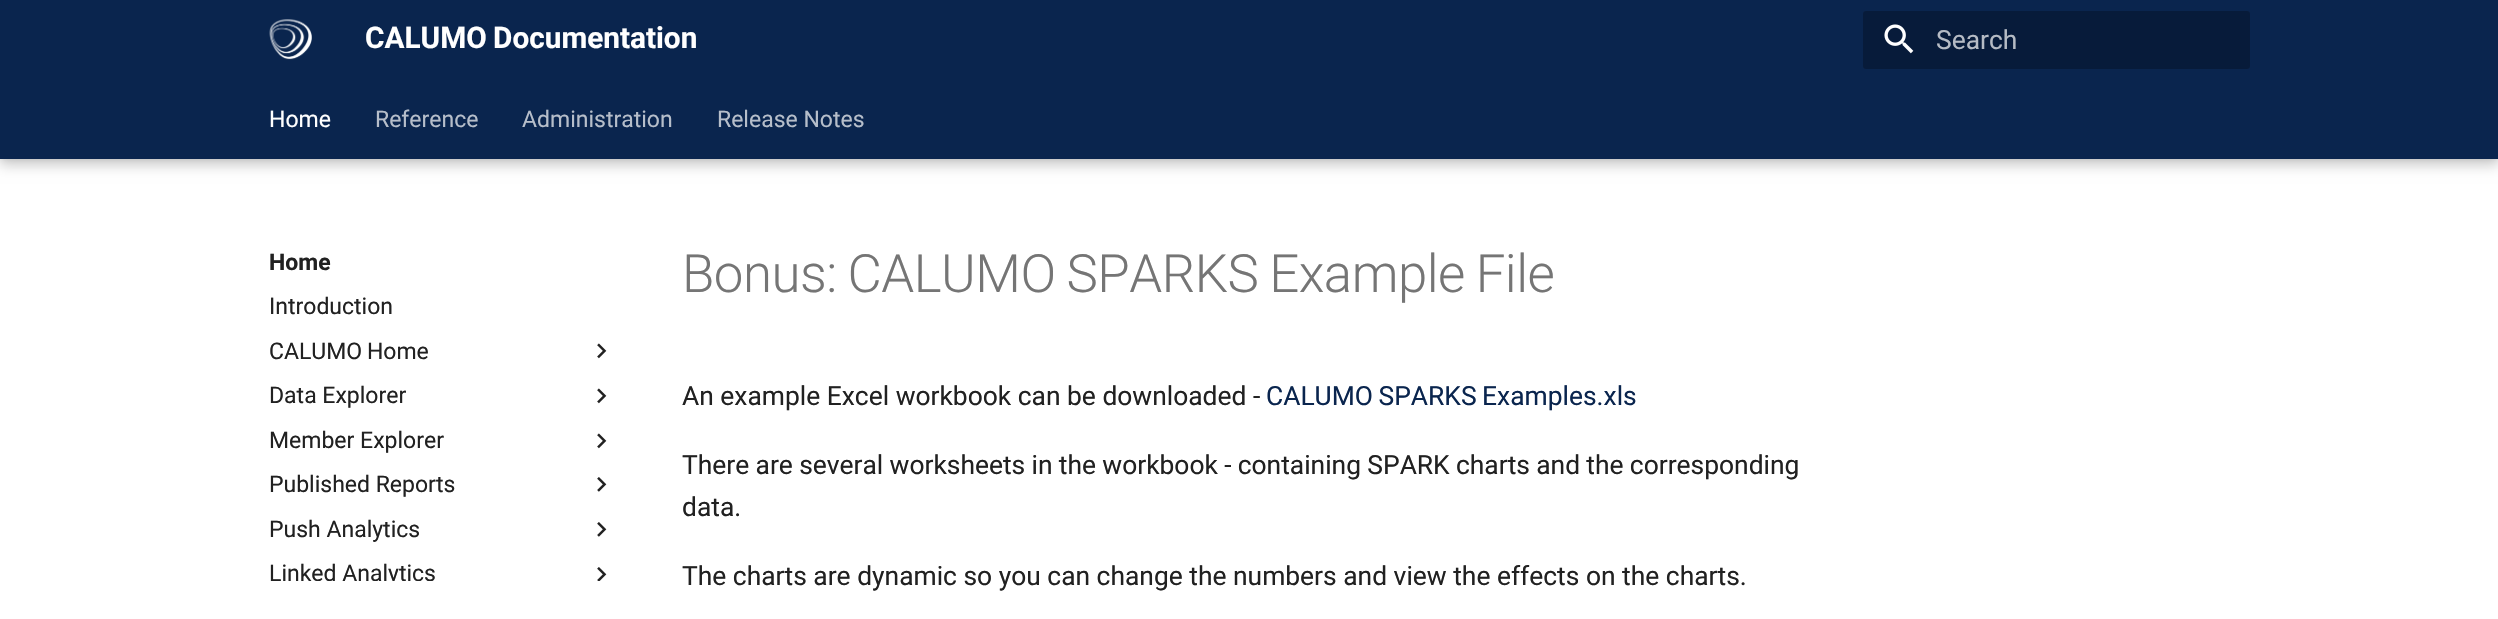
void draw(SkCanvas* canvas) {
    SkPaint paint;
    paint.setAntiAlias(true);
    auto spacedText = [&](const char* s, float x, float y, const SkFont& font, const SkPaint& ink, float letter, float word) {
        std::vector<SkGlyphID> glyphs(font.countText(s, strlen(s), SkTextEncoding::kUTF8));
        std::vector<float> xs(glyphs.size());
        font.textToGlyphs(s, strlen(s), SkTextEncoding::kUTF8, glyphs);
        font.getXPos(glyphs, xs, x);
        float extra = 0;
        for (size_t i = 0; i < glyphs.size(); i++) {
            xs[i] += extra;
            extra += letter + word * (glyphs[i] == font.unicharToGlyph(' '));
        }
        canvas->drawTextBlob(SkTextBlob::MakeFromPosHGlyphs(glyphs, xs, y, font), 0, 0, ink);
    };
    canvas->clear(0xFFFFFFFF);
    paint.setColor(0x33000000);
    paint.setMaskFilter(SkMaskFilter::MakeBlur(kNormal_SkBlurStyle, 6.5f));
    canvas->drawRect(SkRect::MakeXYWH(0, 6, 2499, 159), paint);
    paint.setMaskFilter(nullptr);
    paint.setColor(0x1A000000);
    paint.setMaskFilter(SkMaskFilter::MakeBlur(kNormal_SkBlurStyle, 3.5f));
    canvas->drawRect(SkRect::MakeXYWH(0, 0, 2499, 159), paint);
    paint.setMaskFilter(nullptr);
    paint.setColor(0xFF0A254E);
    canvas->drawRect(SkRect::MakeXYWH(0, 0, 2498, 159), paint);
    canvas->drawImageRect(SkImages::DeferredFromEncodedData(SkData::MakeFromFileName("img1.png")), SkRect::MakeXYWH(269, 19, 43, 41), SkSamplingOptions());
    SkFont font1(fontMgr->matchFamilyStyle("Roboto", SkFontStyle::Bold()), 29.75f);
    font1.setSubpixel(true);
    paint.setColor(0xFFFFFFFF);
    spacedText("CALUMO Documentation", 365, 48, font1, paint, 0, -1);
    paint.setColor(0xFF071B3A);
    canvas->drawRoundRect(SkRect::MakeXYWH(1863, 11, 387, 58), 3, 3, paint);
    canvas->drawImageRect(SkImages::DeferredFromEncodedData(SkData::MakeFromFileName("img2.png")), SkRect::MakeXYWH(1884, 24, 30, 30), SkSamplingOptions());
    SkFont font2(fontMgr->matchFamilyStyle("Roboto", SkFontStyle::Normal()), 26.4f);
    font2.setSubpixel(true);
    paint.setColor(0xFFB5BBC4);
    canvas->drawString("Search", 1936, 49, font2, paint);
    SkFont font3(fontMgr->matchFamilyStyle("Roboto", SkFontStyle::Normal()), 23);
    font3.setSubpixel(true);
    paint.setColor(0xFFFFFFFF);
    canvas->drawString("Home", 269, 127, font3, paint);
    paint.setColor(0xFFB6BECA);
    canvas->drawString("Reference", 375, 127, font3, paint);
    canvas->drawString("Administration", 522, 127, font3, paint);
    canvas->drawString("Release Notes", 717, 127, font3, paint);
    SkFont font4(fontMgr->matchFamilyStyle("Roboto", SkFontStyle::Bold()), 23);
    font4.setSubpixel(true);
    paint.setColor(0xFF212121);
    canvas->drawString("Home", 269, 270, font4, paint);
    canvas->drawString("Introduction", 269, 314, font3, paint);
    spacedText("CALUMO Home", 269, 359, font3, paint, 0, -1);
    canvas->drawImageRect(SkImages::DeferredFromEncodedData(SkData::MakeFromFileName("img3.png")), SkRect::MakeXYWH(597, 343, 10, 16), SkSamplingOptions());
    canvas->drawString("Data Explorer", 269, 403, font3, paint);
    canvas->drawImageRect(SkImages::DeferredFromEncodedData(SkData::MakeFromFileName("img3.png")), SkRect::MakeXYWH(597, 388, 10, 16), SkSamplingOptions());
    canvas->drawString("Member Explorer", 269, 448, font3, paint);
    canvas->drawImageRect(SkImages::DeferredFromEncodedData(SkData::MakeFromFileName("img3.png")), SkRect::MakeXYWH(597, 433, 10, 16), SkSamplingOptions());
    canvas->drawString("Published Reports", 269, 492, font3, paint);
    canvas->drawImageRect(SkImages::DeferredFromEncodedData(SkData::MakeFromFileName("img4.png")), SkRect::MakeXYWH(597, 477, 10, 15), SkSamplingOptions());
    canvas->drawString("Push Analytics", 269, 537, font3, paint);
    canvas->drawImageRect(SkImages::DeferredFromEncodedData(SkData::MakeFromFileName("img4.png")), SkRect::MakeXYWH(597, 522, 10, 15), SkSamplingOptions());
    canvas->save();
    canvas->clipRect(SkRect::MakeXYWH(270, 558, 347, 23));
    canvas->drawString("Linked Analytics", 269, 581, font3, paint);
    canvas->restore();
    canvas->drawImageRect(SkImages::DeferredFromEncodedData(SkData::MakeFromFileName("img5.png")), SkRect::MakeXYWH(597, 567, 10, 14), SkSamplingOptions());
    SkFont font5(fontMgr->matchFamilyStyle("Roboto", SkFontStyle(300, SkFontStyle::kNormal_Width, SkFontStyle::kUpright_Slant)), 52.75f);
    font5.setSubpixel(true);
    paint.setColor(0xFF757575);
    spacedText("Bonus: CALUMO SPARKS Example File", 682, 292, font5, paint, -0.5f, -1.5f);
    paint.setColor(0xFF212121);
    canvas->drawString("An example Excel workbook can be downloaded -", 682, 405, font2, paint);
    paint.setColor(0xFF0A254E);
    spacedText("CALUMO SPARKS Examples.xls", 1266, 405, font2, paint, 0, -1);
    paint.setColor(0xFF212121);
    spacedText("There are several worksheets in the workbook - containing SPARK charts and the corresponding", 682, 474, font2, paint, 0, -0.25f);
    canvas->drawString("data.", 682, 516, font2, paint);
    canvas->drawString("The charts are dynamic so you can change the numbers and view the effects on the charts.", 682, 585, font2, paint);
}
